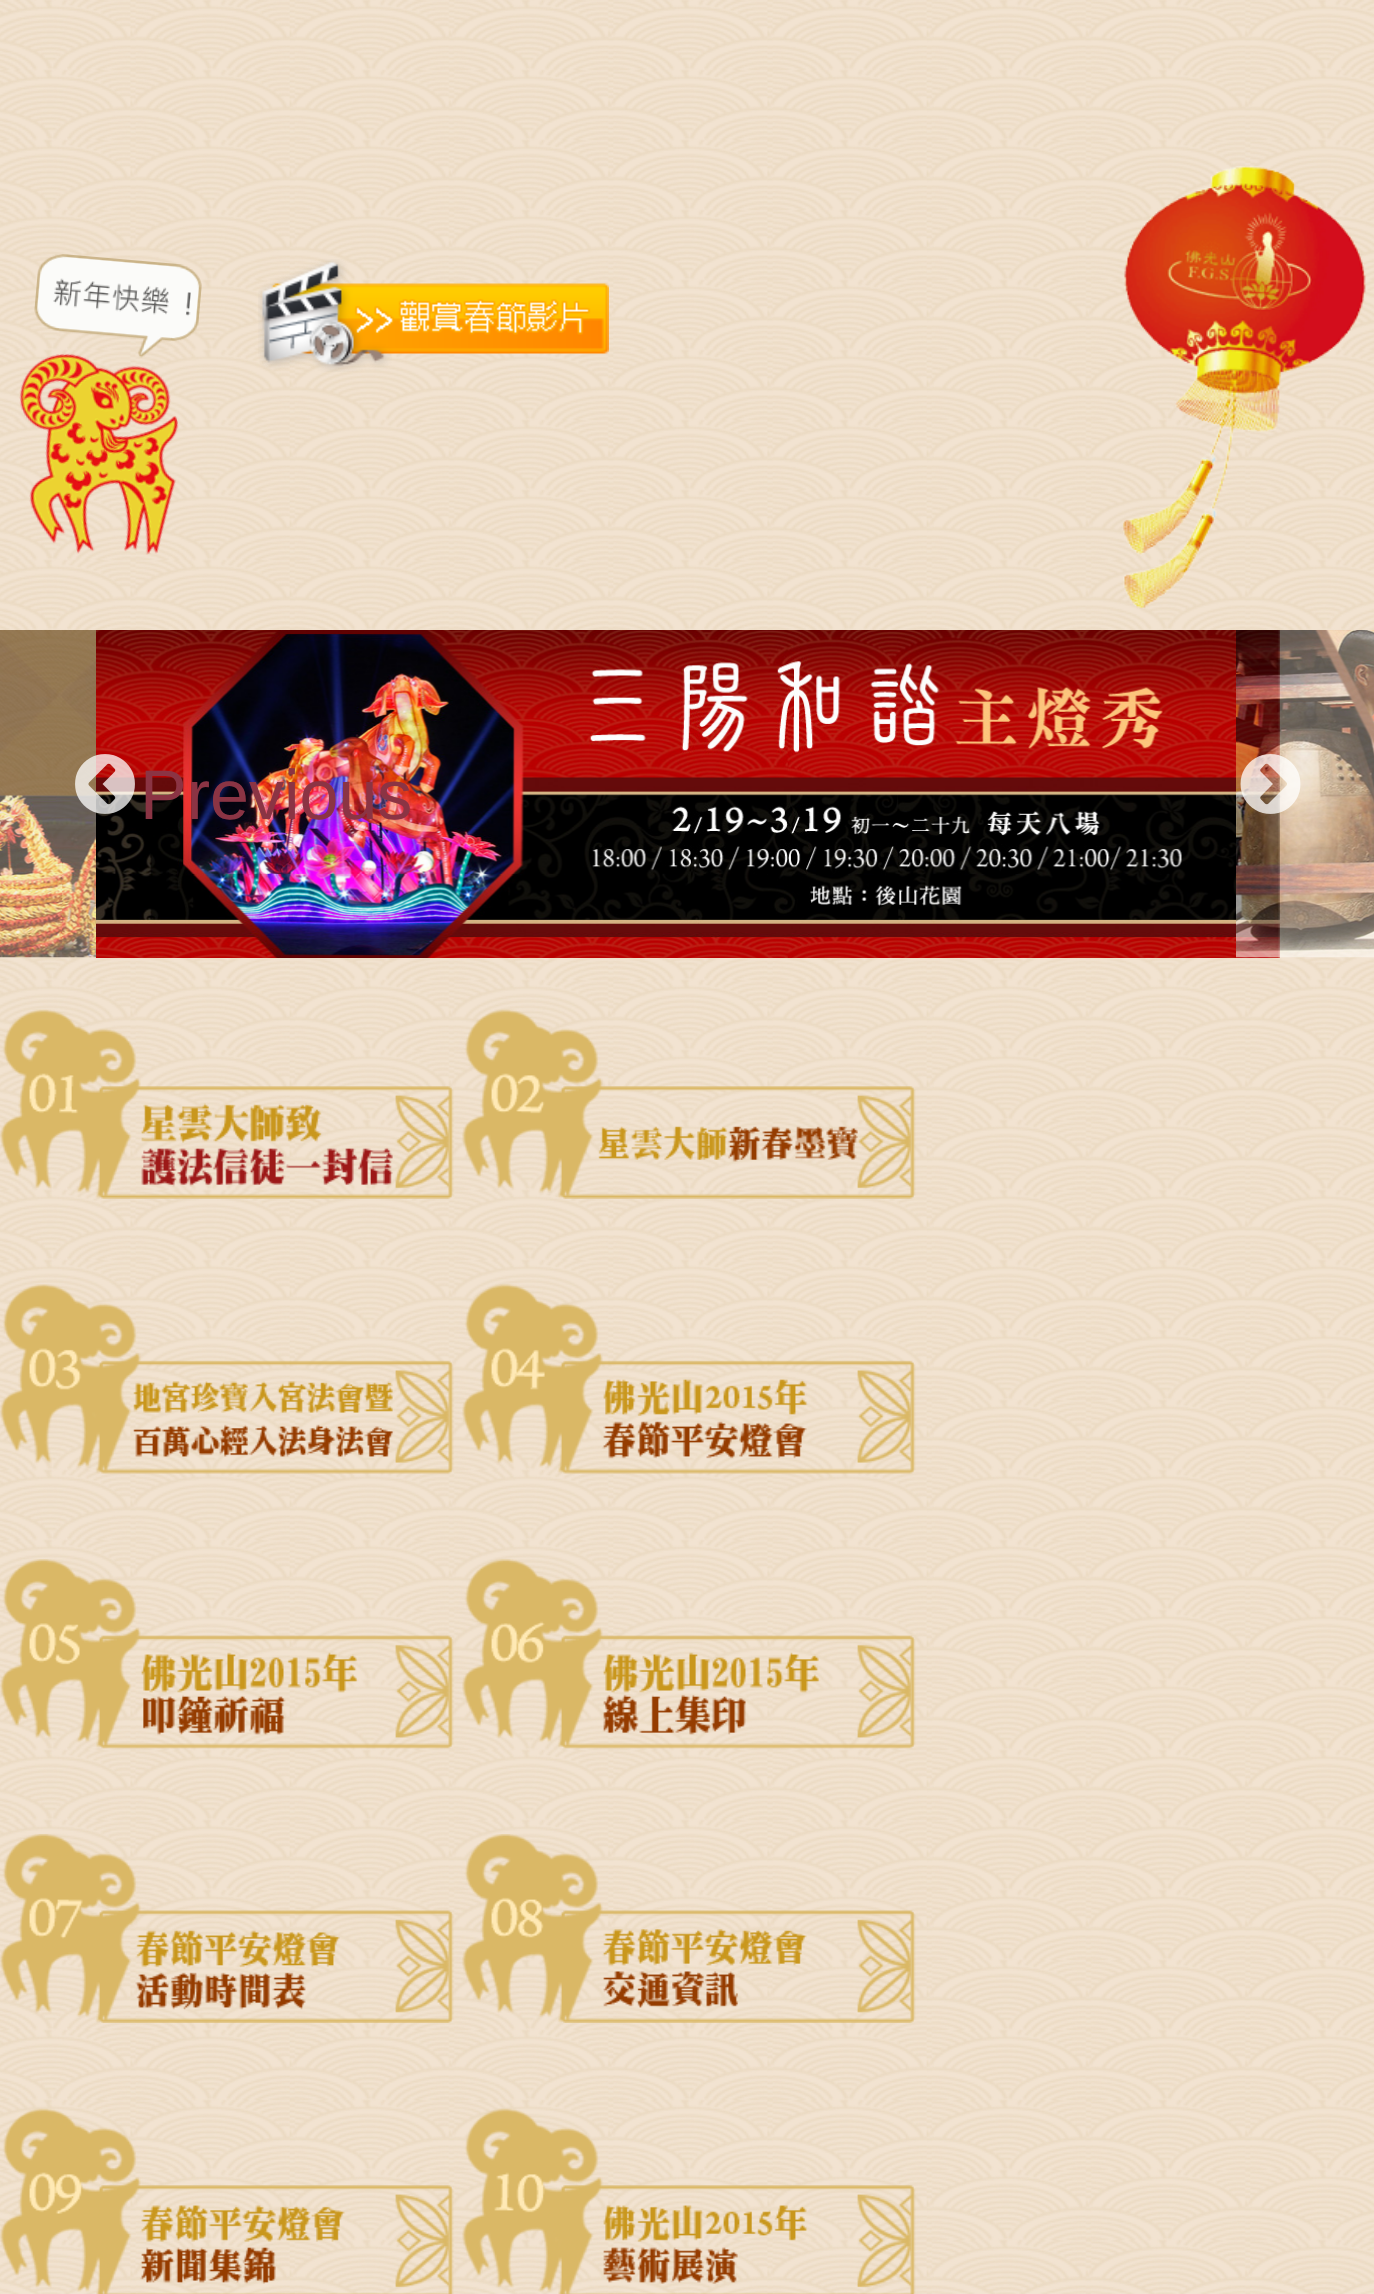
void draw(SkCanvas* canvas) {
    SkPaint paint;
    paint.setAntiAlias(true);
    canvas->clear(0xFFF2E3D1);
    canvas->drawImageRect(SkImages::DeferredFromEncodedData(SkData::MakeFromFileName("img1.png")), SkRect::MakeXYWH(0, 0, 1374, 2294), SkSamplingOptions());
    canvas->drawImageRect(SkImages::DeferredFromEncodedData(SkData::MakeFromFileName("img2.png")), SkRect::MakeXYWH(34, 254, 168, 104), SkSamplingOptions());
    canvas->drawImageRect(SkImages::DeferredFromEncodedData(SkData::MakeFromFileName("img3.png")), SkRect::MakeXYWH(19, 353, 160, 202), SkSamplingOptions());
    canvas->drawImageRect(SkImages::DeferredFromEncodedData(SkData::MakeFromFileName("img4.png")), SkRect::MakeXYWH(258, 259, 351, 113), SkSamplingOptions());
    canvas->drawImageRect(SkImages::DeferredFromEncodedData(SkData::MakeFromFileName("img5.png")), SkRect::MakeXYWH(1123, 166, 243, 443), SkSamplingOptions());
    canvas->drawImageRect(SkImages::DeferredFromEncodedData(SkData::MakeFromFileName("img6.png")), SkRect::MakeXYWH(0, 630, 96, 328), SkSamplingOptions());
    canvas->drawImageRect(SkImages::DeferredFromEncodedData(SkData::MakeFromFileName("img7.png")), SkRect::MakeXYWH(96, 630, 1184, 328), SkSamplingOptions());
    canvas->drawImageRect(SkImages::DeferredFromEncodedData(SkData::MakeFromFileName("img8.png")), SkRect::MakeXYWH(1236, 630, 138, 328), SkSamplingOptions());
    canvas->drawImageRect(SkImages::DeferredFromEncodedData(SkData::MakeFromFileName("img9.png")), SkRect::MakeXYWH(75, 754, 60, 60), SkSamplingOptions());
    SkFont font1(fontMgr->matchFamilyStyle("Liberation Sans", SkFontStyle::Normal()), 70);
    font1.setSubpixel(true);
    paint.setColor(0xFF8B3444);
    canvas->drawString("Previous", 140, 819, font1, paint);
    canvas->drawImageRect(SkImages::DeferredFromEncodedData(SkData::MakeFromFileName("img10.png")), SkRect::MakeXYWH(1240, 754, 61, 60), SkSamplingOptions());
    canvas->drawImageRect(SkImages::DeferredFromEncodedData(SkData::MakeFromFileName("img11.png")), SkRect::MakeXYWH(0, 1009, 454, 190), SkSamplingOptions());
    canvas->drawImageRect(SkImages::DeferredFromEncodedData(SkData::MakeFromFileName("img12.png")), SkRect::MakeXYWH(462, 1009, 454, 190), SkSamplingOptions());
    canvas->drawImageRect(SkImages::DeferredFromEncodedData(SkData::MakeFromFileName("img13.png")), SkRect::MakeXYWH(0, 1284, 454, 190), SkSamplingOptions());
    canvas->drawImageRect(SkImages::DeferredFromEncodedData(SkData::MakeFromFileName("img14.png")), SkRect::MakeXYWH(462, 1284, 454, 190), SkSamplingOptions());
    canvas->drawImageRect(SkImages::DeferredFromEncodedData(SkData::MakeFromFileName("img15.png")), SkRect::MakeXYWH(0, 1559, 454, 190), SkSamplingOptions());
    canvas->drawImageRect(SkImages::DeferredFromEncodedData(SkData::MakeFromFileName("img16.png")), SkRect::MakeXYWH(462, 1559, 454, 190), SkSamplingOptions());
    canvas->drawImageRect(SkImages::DeferredFromEncodedData(SkData::MakeFromFileName("img17.png")), SkRect::MakeXYWH(0, 1834, 454, 189), SkSamplingOptions());
    canvas->drawImageRect(SkImages::DeferredFromEncodedData(SkData::MakeFromFileName("img18.png")), SkRect::MakeXYWH(462, 1834, 454, 189), SkSamplingOptions());
    canvas->drawImageRect(SkImages::DeferredFromEncodedData(SkData::MakeFromFileName("img19.png")), SkRect::MakeXYWH(0, 2108, 454, 186), SkSamplingOptions());
    canvas->drawImageRect(SkImages::DeferredFromEncodedData(SkData::MakeFromFileName("img20.png")), SkRect::MakeXYWH(462, 2108, 454, 186), SkSamplingOptions());
}
